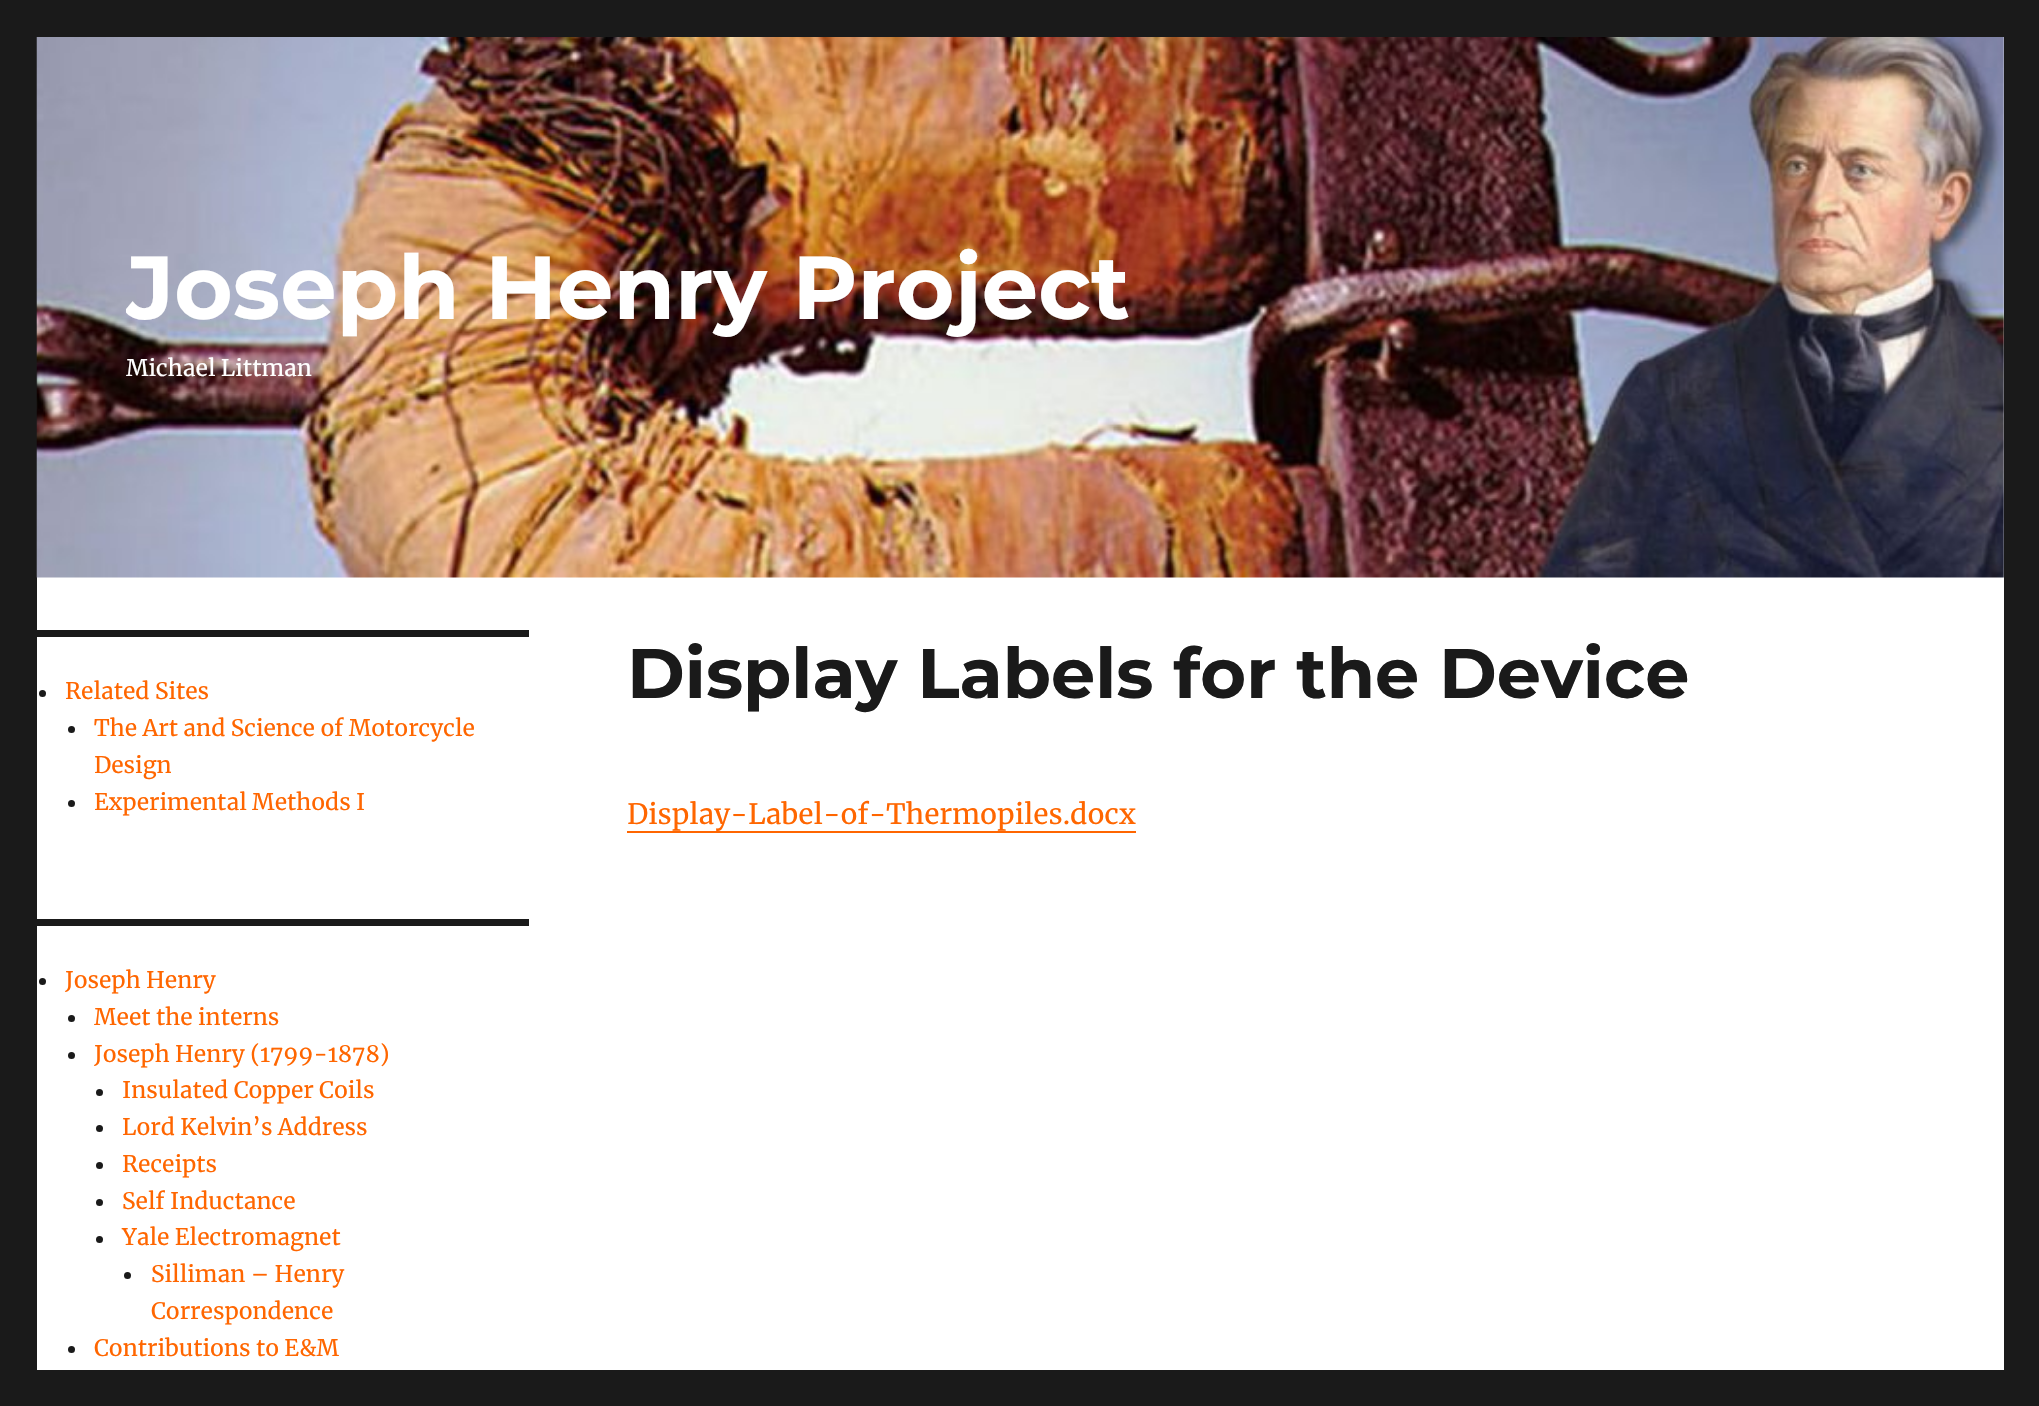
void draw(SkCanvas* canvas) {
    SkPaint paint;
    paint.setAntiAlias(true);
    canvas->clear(0xFF1A1A1A);
    paint.setColor(0xFFFFFFFF);
    canvas->drawRect(SkRect::MakeXYWH(37, 37, 1967, 1333), paint);
    canvas->drawImageRect(SkImages::DeferredFromEncodedData(SkData::MakeFromFileName("img1.png")), SkRect::MakeXYWH(36, 37, 1968, 541), SkSamplingOptions());
    canvas->save();
    canvas->clipRect(SkRect::MakeXYWH(126, 233, 1003, 149));
    SkFont font1(fontMgr->matchFamilyStyle("Montserrat", SkFontStyle(100, SkFontStyle::kNormal_Width, SkFontStyle::kUpright_Slant)), 89.25f);
    font1.setSubpixel(true);
    canvas->drawString("Joseph Henry Project", 126, 319, font1, paint);
    canvas->restore();
    SkFont font2(fontMgr->matchFamilyStyle("Merriweather", SkFontStyle::Normal()), 22.75f);
    font2.setSubpixel(true);
    canvas->drawString("Michael Littman", 126, 376, font2, paint);
    paint.setColor(0xFF1A1A1A);
    canvas->drawRect(SkRect::MakeXYWH(37, 630, 492, 7), paint);
    canvas->drawCircle(42.5f, 693.5f, 3.5f, paint);
    paint.setColor(0xFFFF6600);
    canvas->drawString("Related Sites", 65, 699, font2, paint);
    paint.setColor(0xFF1A1A1A);
    canvas->drawCircle(71.5f, 729.5f, 3.5f, paint);
    paint.setColor(0xFFFF6600);
    canvas->drawString("The Art and Science of Motorcycle", 94, 736, font2, paint);
    canvas->drawString("Design", 94, 773, font2, paint);
    paint.setColor(0xFF1A1A1A);
    canvas->drawCircle(71.5f, 803.5f, 3.5f, paint);
    paint.setColor(0xFFFF6600);
    canvas->drawString("Experimental Methods I", 94, 810, font2, paint);
    paint.setColor(0xFF1A1A1A);
    canvas->drawRect(SkRect::MakeXYWH(37, 919, 492, 7), paint);
    canvas->drawCircle(42.5f, 981.5f, 3.5f, paint);
    paint.setColor(0xFFFF6600);
    canvas->drawString("Joseph Henry", 65, 988, font2, paint);
    paint.setColor(0xFF1A1A1A);
    canvas->drawCircle(71.5f, 1018.5f, 3.5f, paint);
    paint.setColor(0xFFFF6600);
    canvas->drawString("Meet the interns", 94, 1025, font2, paint);
    paint.setColor(0xFF1A1A1A);
    canvas->drawCircle(71.5f, 1055.5f, 3.5f, paint);
    paint.setColor(0xFFFF6600);
    canvas->drawString("Joseph Henry (1799-1878)", 94, 1062, font2, paint);
    paint.setColor(0xFF1A1A1A);
    canvas->drawCircle(99.5f, 1092.5f, 3.5f, paint);
    paint.setColor(0xFFFF6600);
    canvas->drawString("Insulated Copper Coils", 122, 1098, font2, paint);
    paint.setColor(0xFF1A1A1A);
    canvas->drawCircle(99.5f, 1128.5f, 3.5f, paint);
    paint.setColor(0xFFFF6600);
    canvas->drawString("Lord Kelvin’s Address", 122, 1135, font2, paint);
    paint.setColor(0xFF1A1A1A);
    canvas->drawCircle(99.5f, 1165.5f, 3.5f, paint);
    paint.setColor(0xFFFF6600);
    canvas->drawString("Receipts", 122, 1172, font2, paint);
    paint.setColor(0xFF1A1A1A);
    canvas->drawCircle(99.5f, 1202.5f, 3.5f, paint);
    paint.setColor(0xFFFF6600);
    canvas->drawString("Self Inductance", 122, 1209, font2, paint);
    paint.setColor(0xFF1A1A1A);
    canvas->drawCircle(99.5f, 1239.5f, 3.5f, paint);
    paint.setColor(0xFFFF6600);
    canvas->drawString("Yale Electromagnet", 122, 1245, font2, paint);
    paint.setColor(0xFF1A1A1A);
    canvas->drawCircle(127.5f, 1275.5f, 3.5f, paint);
    paint.setColor(0xFFFF6600);
    canvas->drawString("Silliman – Henry", 151, 1282, font2, paint);
    canvas->drawString("Correspondence", 151, 1319, font2, paint);
    paint.setColor(0xFF1A1A1A);
    canvas->drawCircle(71.5f, 1349.5f, 3.5f, paint);
    paint.setColor(0xFFFF6600);
    canvas->drawString("Contributions to E&M", 94, 1356, font2, paint);
    SkFont font3(fontMgr->matchFamilyStyle("Montserrat", SkFontStyle(100, SkFontStyle::kNormal_Width, SkFontStyle::kUpright_Slant)), 70);
    font3.setSubpixel(true);
    paint.setColor(0xFF1A1A1A);
    canvas->drawString("Display Labels for the Device", 627, 698, font3, paint);
    SkFont font4(fontMgr->matchFamilyStyle("Merriweather", SkFontStyle::Normal()), 28);
    font4.setSubpixel(true);
    paint.setColor(0xFFFF6600);
    canvas->drawString("Display-Label-of-Thermopiles.docx", 627, 824, font4, paint);
    canvas->drawPath(SkPathBuilder().moveTo(627, 831).lineTo(627, 833).lineTo(1136, 833).lineTo(1136, 798).lineTo(1136, 831).close().detach(), paint);
}
